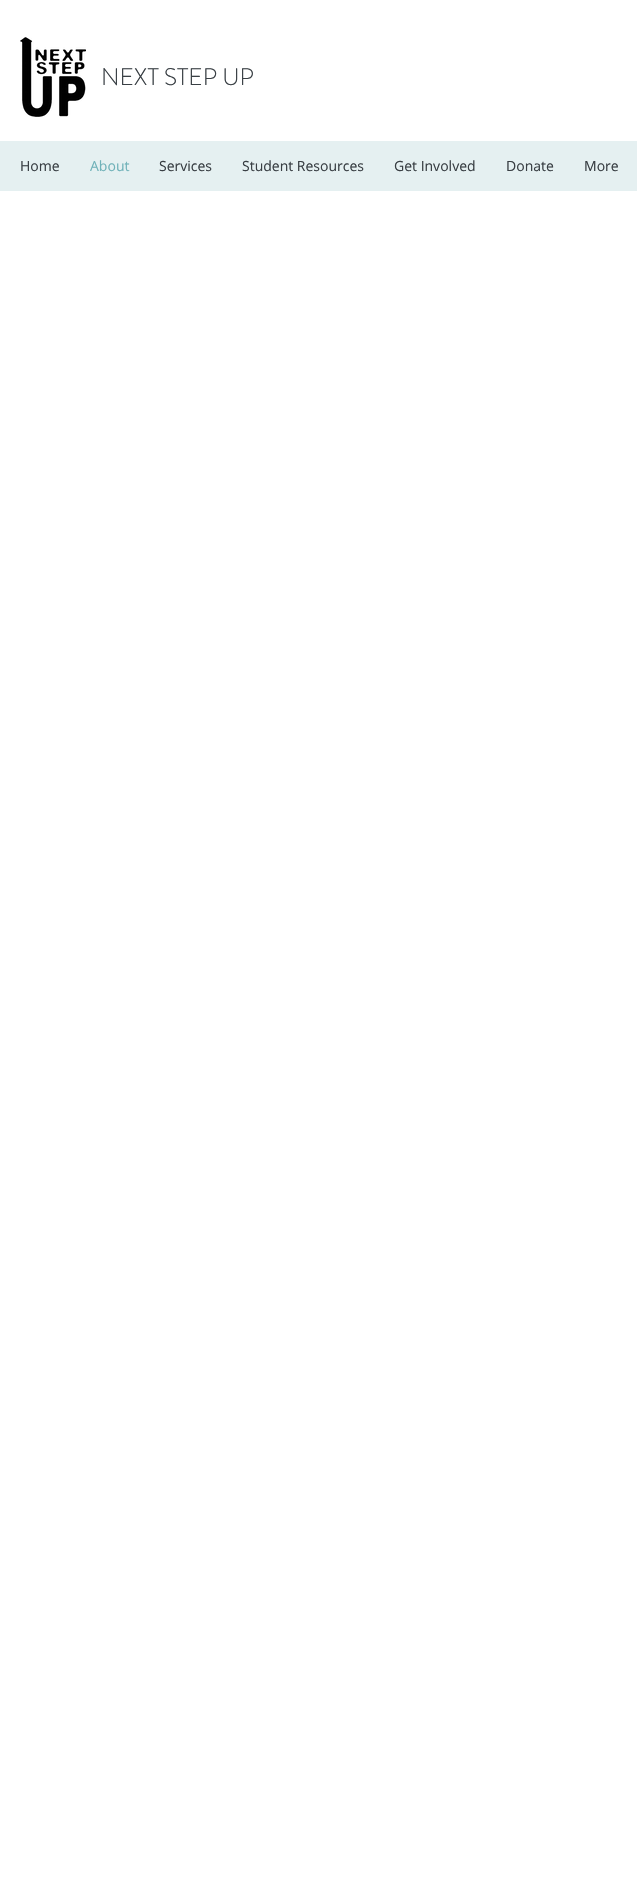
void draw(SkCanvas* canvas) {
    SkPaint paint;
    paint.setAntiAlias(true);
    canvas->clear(0xFFFFFFFF);
    canvas->drawImageRect(SkImages::DeferredFromEncodedData(SkData::MakeFromFileName("img1.png")), SkRect::MakeXYWH(20, 37, 66, 80), SkSamplingOptions());
    SkFont font1(fontMgr->matchFamilyStyle("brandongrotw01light", SkFontStyle(300, SkFontStyle::kNormal_Width, SkFontStyle::kUpright_Slant)), 24);
    font1.setSubpixel(true);
    paint.setColor(0xFF393F44);
    canvas->drawString("NEXT STEP UP", 101, 85, font1, paint);
    paint.setColor(0xFFE5F0F1);
    canvas->drawRect(SkRect::MakeXYWH(0, 141, 637, 50), paint);
    SkFont font2(fontMgr->matchFamilyStyle("Open Sans", SkFontStyle::Normal()), 14);
    font2.setSubpixel(true);
    paint.setColor(0xFF393F44);
    canvas->drawString("Home", 20, 171, font2, paint);
    paint.setColor(0xFF70B2B9);
    canvas->drawString("About", 90, 171, font2, paint);
    paint.setColor(0xFF393F44);
    canvas->drawString("Services", 159, 171, font2, paint);
    canvas->drawString("Student Resources", 242, 171, font2, paint);
    canvas->drawString("Get Involved", 394, 171, font2, paint);
    canvas->drawString("Donate", 506, 171, font2, paint);
    canvas->drawString("More", 584, 171, font2, paint);
}
